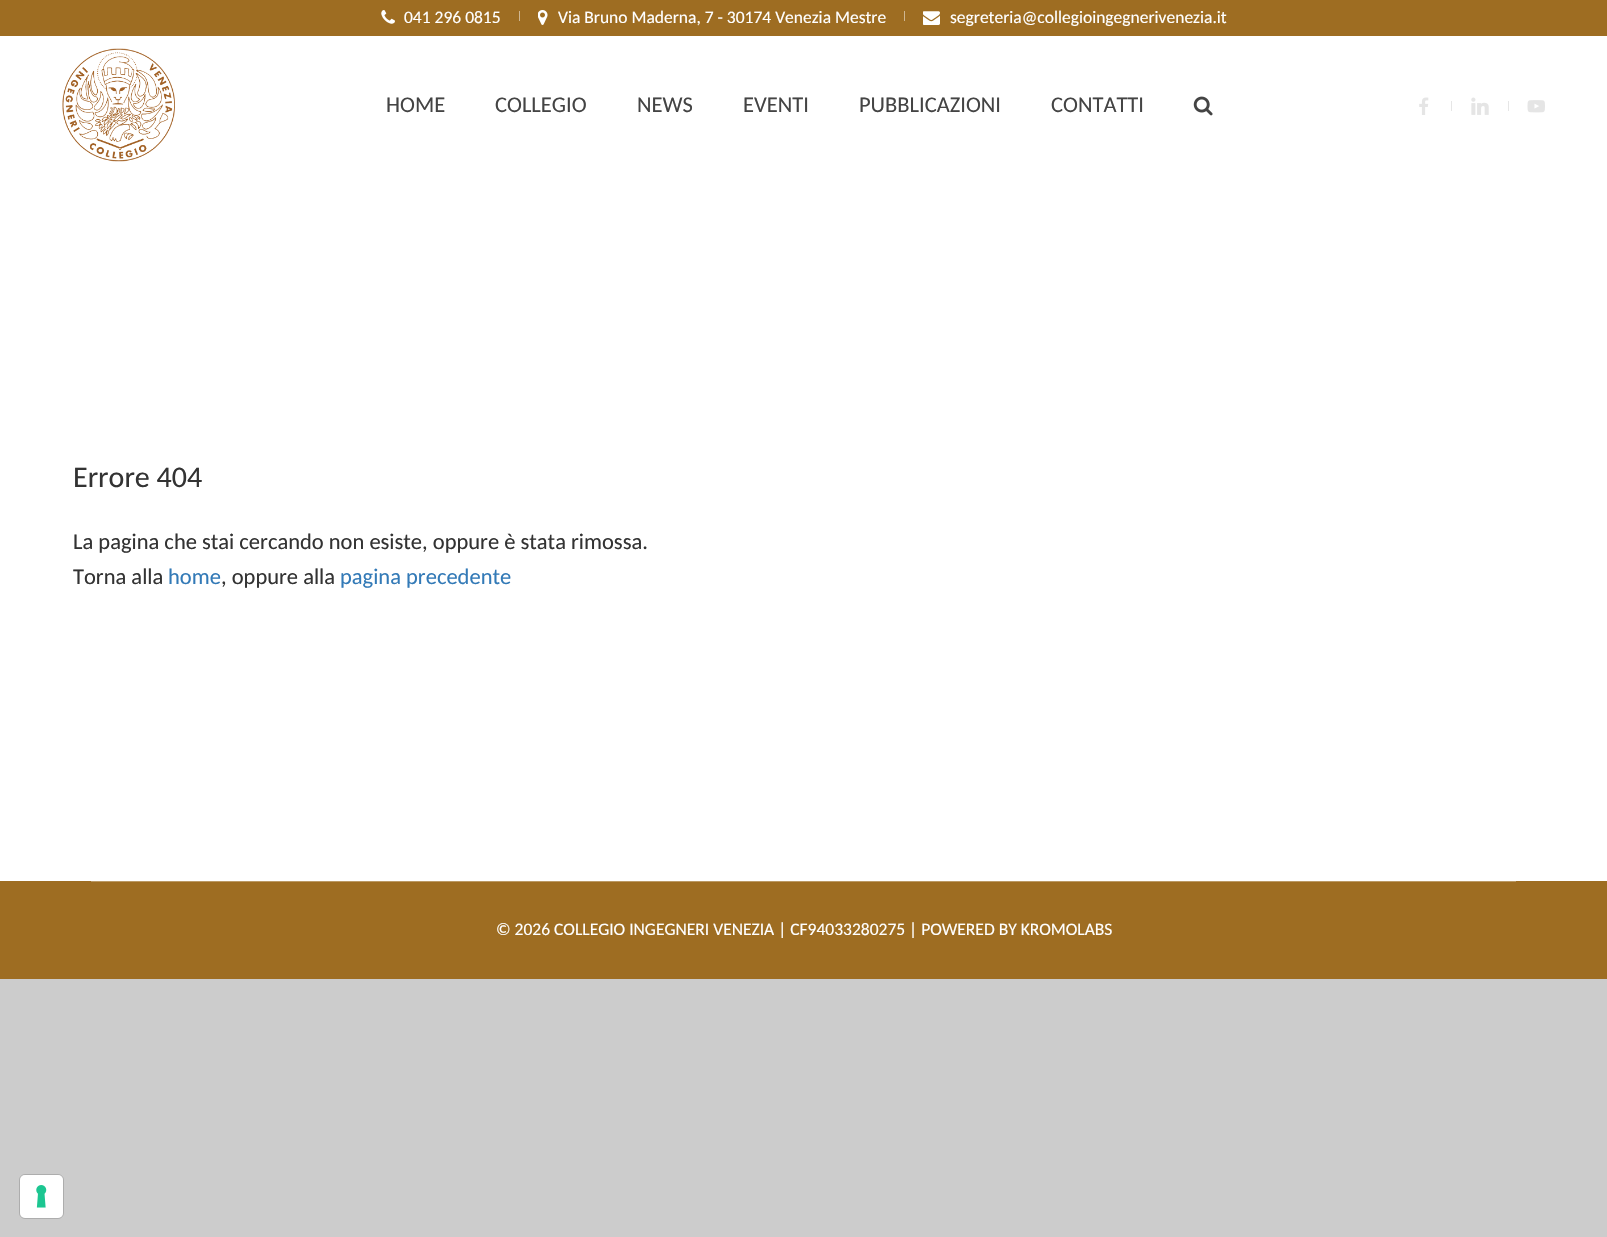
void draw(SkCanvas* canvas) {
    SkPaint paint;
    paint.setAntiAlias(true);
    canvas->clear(0xFFCCCCCC);
    paint.setColor(0xFF9E6D22);
    canvas->drawRect(SkRect::MakeXYWH(0, 0, 1607, 36), paint);
    canvas->drawImageRect(SkImages::DeferredFromEncodedData(SkData::MakeFromFileName("img1.png")), SkRect::MakeXYWH(381, 10, 14, 14), SkSamplingOptions());
    SkFont font1(fontMgr->matchFamilyStyle("Carlito", SkFontStyle::Normal()), 17.5f);
    font1.setSubpixel(true);
    paint.setColor(0xFFFFFFFF);
    canvas->drawString("041 296 0815", 404, 23, font1, paint);
    paint.setColor(0xFFCFB691);
    canvas->drawRect(SkRect::MakeXYWH(519, 11, 1, 10), paint);
    canvas->drawImageRect(SkImages::DeferredFromEncodedData(SkData::MakeFromFileName("img2.png")), SkRect::MakeXYWH(538, 10, 10, 15), SkSamplingOptions());
    paint.setColor(0xFFFFFFFF);
    canvas->drawString("Via Bruno Maderna, 7 - 30174 Venezia Mestre", 558, 23, font1, paint);
    paint.setColor(0xFFCFB691);
    canvas->drawRect(SkRect::MakeXYWH(904, 11, 1, 10), paint);
    canvas->drawImageRect(SkImages::DeferredFromEncodedData(SkData::MakeFromFileName("img3.png")), SkRect::MakeXYWH(923, 11, 17, 14), SkSamplingOptions());
    paint.setColor(0xFFFFFFFF);
    canvas->drawString("segreteria@collegioingegnerivenezia.it", 950, 23, font1, paint);
    canvas->drawRect(SkRect::MakeXYWH(0, 36, 1607, 845), paint);
    canvas->drawImageRect(SkImages::DeferredFromEncodedData(SkData::MakeFromFileName("img4.png")), SkRect::MakeXYWH(62, 48, 113, 114), SkSamplingOptions());
    SkFont font2(fontMgr->matchFamilyStyle("Carlito", SkFontStyle::Normal()), 22.5f);
    font2.setSubpixel(true);
    paint.setColor(0xFF444444);
    canvas->drawString("HOME", 386, 112, font2, paint);
    canvas->drawString("COLLEGIO", 495, 112, font2, paint);
    canvas->drawString("NEWS", 637, 112, font2, paint);
    canvas->drawString("EVENTI", 743, 112, font2, paint);
    canvas->drawString("PUBBLICAZIONI", 859, 112, font2, paint);
    canvas->drawString("CONTATTI", 1051, 112, font2, paint);
    canvas->drawImageRect(SkImages::DeferredFromEncodedData(SkData::MakeFromFileName("img5.png")), SkRect::MakeXYWH(1193, 96, 20, 20), SkSamplingOptions());
    canvas->drawImageRect(SkImages::DeferredFromEncodedData(SkData::MakeFromFileName("img6.png")), SkRect::MakeXYWH(1419, 97, 10, 18), SkSamplingOptions());
    paint.setColor(0xFFE6E6E6);
    canvas->drawRect(SkRect::MakeXYWH(1451, 101, 1, 10), paint);
    canvas->drawImageRect(SkImages::DeferredFromEncodedData(SkData::MakeFromFileName("img7.png")), SkRect::MakeXYWH(1471, 97, 18, 18), SkSamplingOptions());
    canvas->drawRect(SkRect::MakeXYWH(1508, 101, 1, 10), paint);
    canvas->drawImageRect(SkImages::DeferredFromEncodedData(SkData::MakeFromFileName("img8.png")), SkRect::MakeXYWH(1527, 100, 18, 13), SkSamplingOptions());
    SkFont font3(fontMgr->matchFamilyStyle("Carlito", SkFontStyle::Normal()), 30);
    font3.setSubpixel(true);
    paint.setColor(0xFF333333);
    canvas->drawString("Errore 404", 73, 487, font3, paint);
    canvas->drawString("La pagina che stai cercando non esiste, oppure è stata rimossa.", 73, 549, font2, paint);
    canvas->drawString("Torna alla", 73, 584, font2, paint);
    paint.setColor(0xFF337AB7);
    canvas->drawString("home", 168, 584, font2, paint);
    paint.setColor(0xFF333333);
    canvas->drawString(", oppure alla", 221, 584, font2, paint);
    paint.setColor(0xFF337AB7);
    canvas->drawString("pagina precedente", 340, 584, font2, paint);
    paint.setColor(0xFF9E6D22);
    canvas->drawRect(SkRect::MakeXYWH(0, 881, 1607, 98), paint);
    paint.setColor(0xFFBB9964);
    canvas->drawRect(SkRect::MakeXYWH(91, 881, 1425, 1), paint);
    paint.setColor(0xFFFFFFFF);
    canvas->drawString("© 2026 COLLEGIO INGEGNERI VENEZIA | CF94033280275 | POWERED BY KROMOLABS", 496, 935, font1, paint);
    paint.setStyle(SkPaint::kStroke_Style);
    paint.setStrokeWidth(1);
    paint.setColor(0xFFADADAD);
    canvas->drawRoundRect(SkRect::MakeXYWH(19.5f, 1174.5f, 44, 44), 5.5f, 5.5f, paint);
    paint.setStyle(SkPaint::kFill_Style);
    paint.setColor(0xFFFFFFFF);
    canvas->drawRoundRect(SkRect::MakeXYWH(20, 1175, 43, 43), 5, 5, paint);
    canvas->drawImageRect(SkImages::DeferredFromEncodedData(SkData::MakeFromFileName("img9.png")), SkRect::MakeXYWH(36, 1185, 11, 23), SkSamplingOptions());
}
